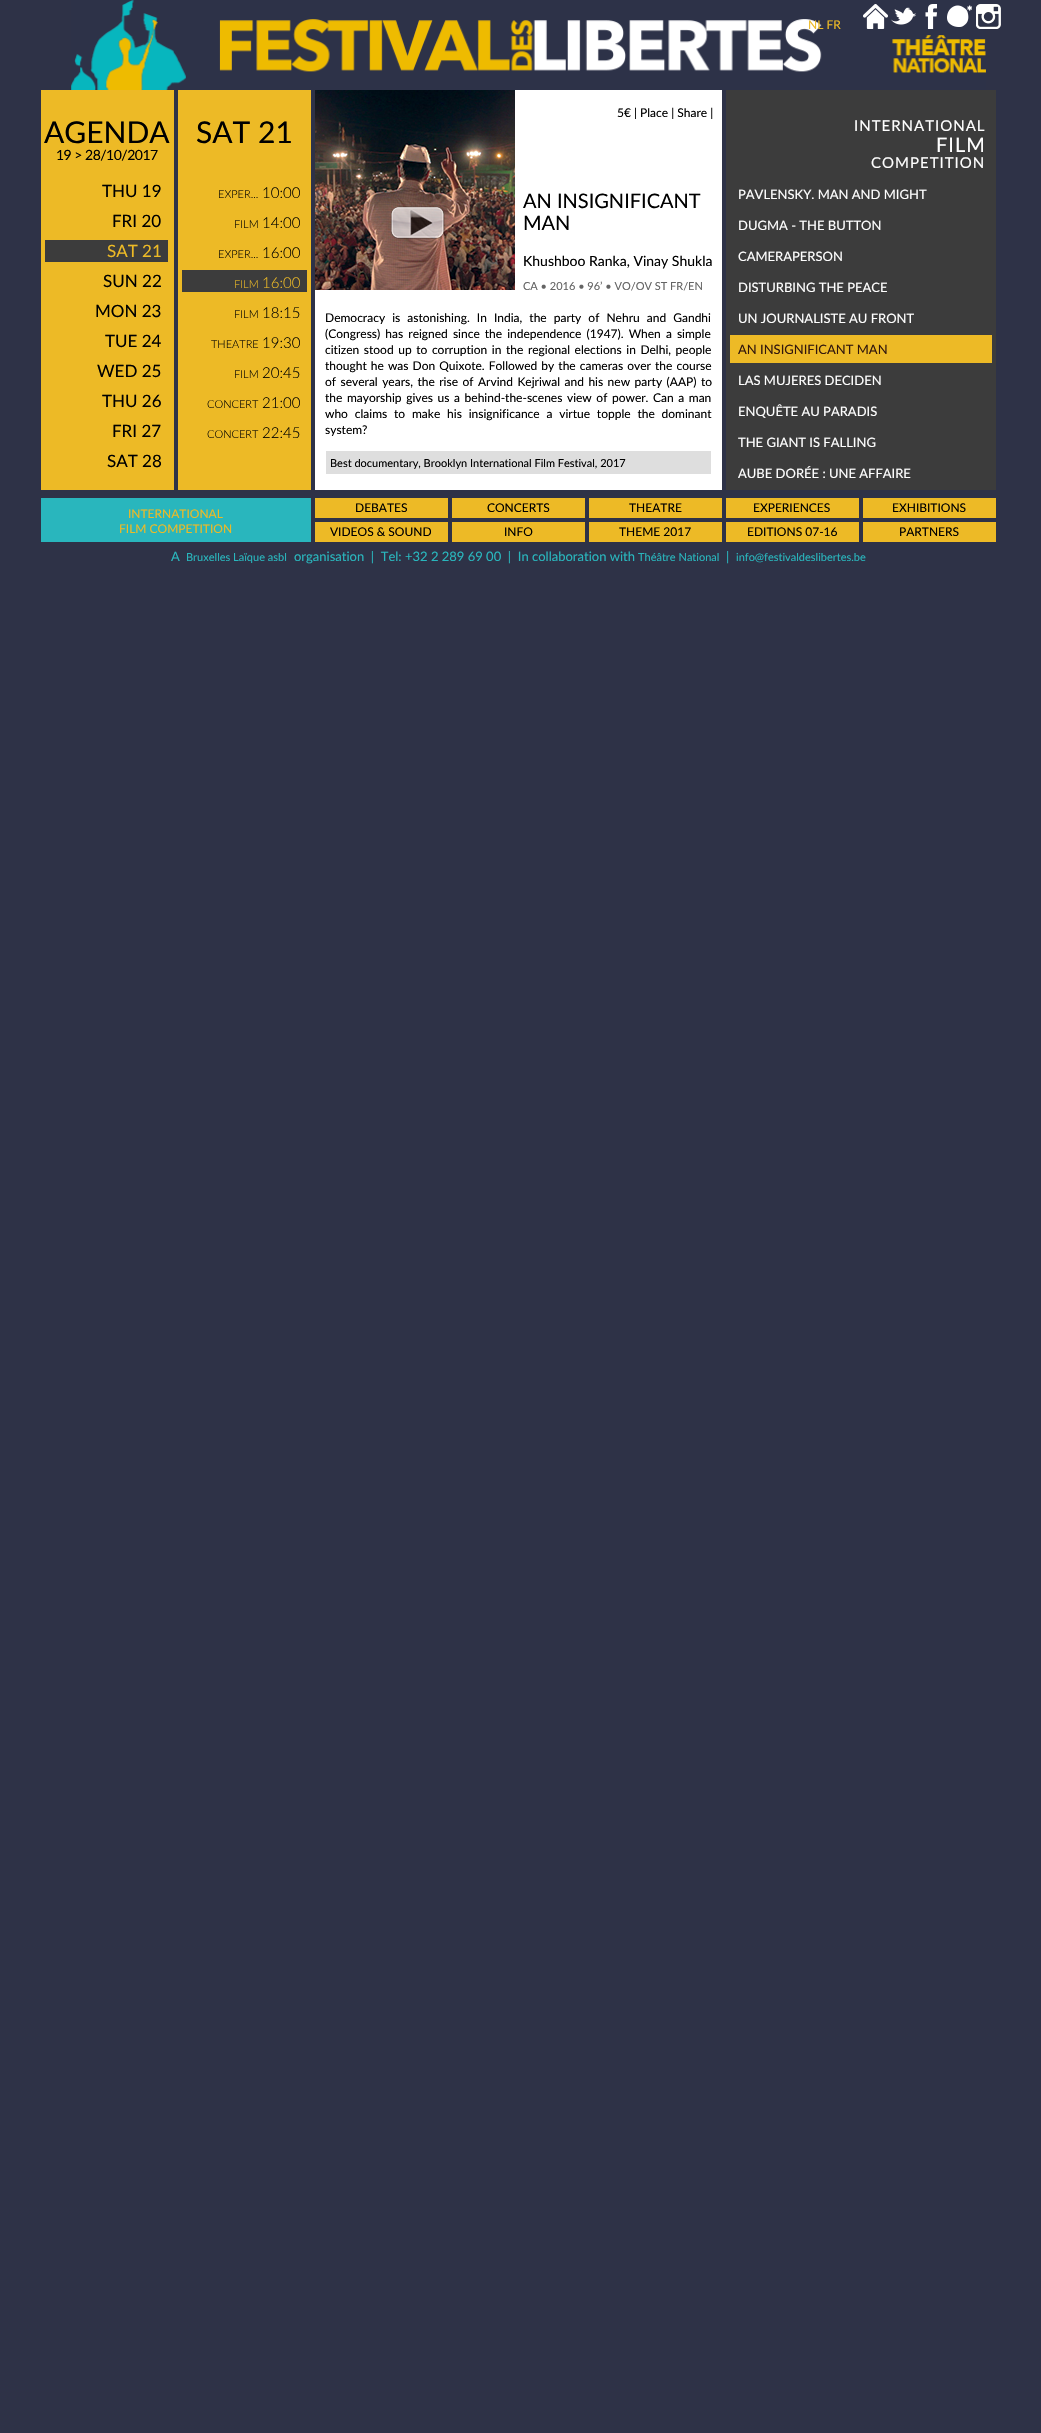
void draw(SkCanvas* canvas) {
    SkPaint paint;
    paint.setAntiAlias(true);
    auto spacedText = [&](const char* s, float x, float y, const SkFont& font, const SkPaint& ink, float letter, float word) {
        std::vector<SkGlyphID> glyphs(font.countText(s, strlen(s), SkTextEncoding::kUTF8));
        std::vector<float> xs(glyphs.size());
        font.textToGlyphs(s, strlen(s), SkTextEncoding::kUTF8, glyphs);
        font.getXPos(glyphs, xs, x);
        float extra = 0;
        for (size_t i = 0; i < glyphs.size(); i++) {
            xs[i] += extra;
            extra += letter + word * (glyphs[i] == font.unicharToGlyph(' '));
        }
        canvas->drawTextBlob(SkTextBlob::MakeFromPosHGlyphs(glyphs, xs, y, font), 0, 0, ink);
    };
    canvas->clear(0xFF2E3247);
    canvas->drawImageRect(SkImages::DeferredFromEncodedData(SkData::MakeFromFileName("img1.png")), SkRect::MakeXYWH(71, 0, 915, 90), SkSamplingOptions());
    SkFont font1(fontMgr->matchFamilyStyle("Lato", SkFontStyle::Normal()), 12);
    font1.setSubpixel(true);
    paint.setColor(0xFFEDBA26);
    canvas->drawString("NL FR", 808, 29, font1, paint);
    canvas->drawImageRect(SkImages::DeferredFromEncodedData(SkData::MakeFromFileName("img2.png")), SkRect::MakeXYWH(863, 4, 25, 25), SkSamplingOptions());
    canvas->drawImageRect(SkImages::DeferredFromEncodedData(SkData::MakeFromFileName("img3.png")), SkRect::MakeXYWH(891, 7, 25, 18), SkSamplingOptions());
    canvas->drawImageRect(SkImages::DeferredFromEncodedData(SkData::MakeFromFileName("img4.png")), SkRect::MakeXYWH(925, 4, 12, 25), SkSamplingOptions());
    canvas->drawImageRect(SkImages::DeferredFromEncodedData(SkData::MakeFromFileName("img5.png")), SkRect::MakeXYWH(947, 5, 25, 22), SkSamplingOptions());
    canvas->drawImageRect(SkImages::DeferredFromEncodedData(SkData::MakeFromFileName("img6.png")), SkRect::MakeXYWH(976, 4, 25, 25), SkSamplingOptions());
    canvas->drawRect(SkRect::MakeXYWH(41, 90, 133, 400), paint);
    SkFont font2(fontMgr->matchFamilyStyle("Lato", SkFontStyle::Normal()), 30);
    font2.setSubpixel(true);
    paint.setColor(0xFF000000);
    canvas->drawString("AGENDA", 44, 143, font2, paint);
    SkFont font3(fontMgr->matchFamilyStyle("Lato", SkFontStyle::Normal()), 14);
    font3.setSubpixel(true);
    spacedText("19 > 28/10/2017", 56, 160, font3, paint, -0.5f, 0);
    SkFont font4(fontMgr->matchFamilyStyle("Lato", SkFontStyle::Normal()), 17);
    font4.setSubpixel(true);
    canvas->drawString("THU 19", 102, 197, font4, paint);
    canvas->drawString("FRI 20", 112, 227, font4, paint);
    paint.setColor(0xFF3C3C3C);
    canvas->drawRect(SkRect::MakeXYWH(45, 240, 123, 22), paint);
    paint.setColor(0xFFEDBA26);
    canvas->drawString("SAT 21", 107, 257, font4, paint);
    paint.setColor(0xFF000000);
    canvas->drawString("SUN 22", 103, 287, font4, paint);
    canvas->drawString("MON 23", 95, 317, font4, paint);
    canvas->drawString("TUE 24", 105, 347, font4, paint);
    canvas->drawString("WED 25", 97, 377, font4, paint);
    canvas->drawString("THU 26", 102, 407, font4, paint);
    canvas->drawString("FRI 27", 112, 437, font4, paint);
    canvas->drawString("SAT 28", 107, 467, font4, paint);
    paint.setColor(0xFFEDBA26);
    canvas->drawRect(SkRect::MakeXYWH(178, 90, 133, 400), paint);
    paint.setColor(0xFF000000);
    canvas->drawString("SAT 21", 196, 143, font2, paint);
    SkFont font5(fontMgr->matchFamilyStyle("Lato", SkFontStyle(300, SkFontStyle::kNormal_Width, SkFontStyle::kUpright_Slant)), 11);
    font5.setSubpixel(true);
    canvas->drawString("EXPER...", 218, 198, font5, paint);
    SkFont font6(fontMgr->matchFamilyStyle("Lato", SkFontStyle(300, SkFontStyle::kNormal_Width, SkFontStyle::kUpright_Slant)), 15);
    font6.setSubpixel(true);
    canvas->drawString("10:00", 262, 198, font6, paint);
    canvas->drawString("FILM", 234, 228, font5, paint);
    canvas->drawString("14:00", 262, 228, font6, paint);
    canvas->drawString("EXPER...", 218, 258, font5, paint);
    canvas->drawString("16:00", 262, 258, font6, paint);
    paint.setColor(0xFF3C3C3C);
    canvas->drawRect(SkRect::MakeXYWH(182, 270, 125, 22), paint);
    paint.setColor(0xFFEDBA26);
    canvas->drawString("FILM", 234, 288, font5, paint);
    canvas->drawString("16:00", 262, 288, font6, paint);
    paint.setColor(0xFF000000);
    canvas->drawString("FILM", 234, 318, font5, paint);
    canvas->drawString("18:15", 262, 318, font6, paint);
    canvas->drawString("THEATRE", 211, 348, font5, paint);
    canvas->drawString("19:30", 262, 348, font6, paint);
    canvas->drawString("FILM", 234, 378, font5, paint);
    canvas->drawString("20:45", 262, 378, font6, paint);
    canvas->drawString("CONCERT", 207, 408, font5, paint);
    canvas->drawString("21:00", 262, 408, font6, paint);
    canvas->drawString("CONCERT", 207, 438, font5, paint);
    canvas->drawString("22:45", 262, 438, font6, paint);
    paint.setColor(0xFFFFFFFF);
    canvas->drawRect(SkRect::MakeXYWH(315, 90, 407, 400), paint);
    canvas->drawImageRect(SkImages::DeferredFromEncodedData(SkData::MakeFromFileName("img7.png")), SkRect::MakeXYWH(315, 90, 200, 200), SkSamplingOptions());
    canvas->drawImageRect(SkImages::DeferredFromEncodedData(SkData::MakeFromFileName("img8.png")), SkRect::MakeXYWH(390, 206, 55, 34), SkSamplingOptions());
    paint.setColor(0xFF000000);
    canvas->drawString("5€ | Place | Share |", 617, 117, font1, paint);
    SkFont font7(fontMgr->matchFamilyStyle("Lato", SkFontStyle::Normal()), 20);
    font7.setSubpixel(true);
    canvas->drawString("AN INSIGNIFICANT", 523, 208, font7, paint);
    canvas->drawString("MAN", 523, 230, font7, paint);
    canvas->drawString("Khushboo Ranka, Vinay Shukla", 523, 266, font3, paint);
    SkFont font8(fontMgr->matchFamilyStyle("Lato", SkFontStyle::Normal()), 11);
    font8.setSubpixel(true);
    paint.setColor(0xFF646464);
    canvas->drawString("CA • 2016 • 96’ • VO/OV ST FR/EN", 523, 290, font8, paint);
    paint.setColor(0xFF000000);
    spacedText("Democracy is astonishing. In India, the party of Nehru and Gandhi", 325, 322, font1, paint, 0, 4);
    spacedText("(Congress) has reigned since the independence (1947). When a simple", 325, 338, font1, paint, 0, 2);
    spacedText("citizen stood up to corruption in the regional elections in Delhi, people", 325, 354, font1, paint, 0, 1.5f);
    spacedText("thought he was Don Quixote. Followed by the cameras over the course", 325, 370, font1, paint, 0, 1);
    spacedText("of several years, the rise of Arvind Kejriwal and his new party (AAP) to", 325, 386, font1, paint, 0, 1.4f);
    spacedText("the mayorship gives us a behind-the-scenes view of power. Can a man", 325, 402, font1, paint, 0, 1.5f);
    spacedText("who claims to make his insignificance a virtue topple the dominant", 325, 418, font1, paint, 0, 3.75f);
    canvas->drawString("system?", 325, 434, font1, paint);
    paint.setColor(0xFFDEDEDE);
    canvas->drawRect(SkRect::MakeXYWH(326, 451, 385, 23), paint);
    paint.setColor(0xFF000000);
    canvas->drawString("Best documentary, Brooklyn International Film Festival, 2017", 330, 467, font8, paint);
    paint.setColor(0xFF3C3C3C);
    canvas->drawRect(SkRect::MakeXYWH(726, 90, 270, 400), paint);
    SkFont font9(fontMgr->matchFamilyStyle("Lato", SkFontStyle::Normal()), 15);
    font9.setSubpixel(true);
    paint.setColor(0xFFFFFFFF);
    spacedText("INTERNATIONAL", 854, 131, font9, paint, 1, 0);
    spacedText("FILM", 936, 152, font7, paint, 1, 0);
    spacedText("COMPETITION", 871, 168, font9, paint, 1, 0);
    SkFont font10(fontMgr->matchFamilyStyle("Lato", SkFontStyle::Normal()), 13);
    font10.setSubpixel(true);
    canvas->drawString("PAVLENSKY. MAN AND MIGHT", 738, 199, font10, paint);
    canvas->drawString("DUGMA - THE BUTTON", 738, 230, font10, paint);
    canvas->drawString("CAMERAPERSON", 738, 261, font10, paint);
    canvas->drawString("DISTURBING THE PEACE", 738, 292, font10, paint);
    canvas->drawString("UN JOURNALISTE AU FRONT", 738, 323, font10, paint);
    paint.setColor(0xFFEDBA26);
    canvas->drawRect(SkRect::MakeXYWH(730, 335, 262, 28), paint);
    paint.setColor(0xFF33180D);
    canvas->drawString("AN INSIGNIFICANT MAN", 738, 354, font10, paint);
    paint.setColor(0xFFFFFFFF);
    canvas->drawString("LAS MUJERES DECIDEN", 738, 385, font10, paint);
    canvas->drawString("ENQUÊTE AU PARADIS", 738, 416, font10, paint);
    canvas->drawString("THE GIANT IS FALLING", 738, 447, font10, paint);
    canvas->drawString("AUBE DORÉE : UNE AFFAIRE", 738, 478, font10, paint);
    paint.setColor(0xFFEDBA26);
    canvas->drawRect(SkRect::MakeXYWH(315, 498, 133, 20), paint);
    paint.setColor(0xFF000000);
    canvas->drawString("DEBATES", 355, 512, font1, paint);
    paint.setColor(0xFFEDBA26);
    canvas->drawRect(SkRect::MakeXYWH(452, 498, 133, 20), paint);
    paint.setColor(0xFF000000);
    canvas->drawString("CONCERTS", 487, 512, font1, paint);
    paint.setColor(0xFFEDBA26);
    canvas->drawRect(SkRect::MakeXYWH(589, 498, 133, 20), paint);
    paint.setColor(0xFF000000);
    canvas->drawString("THEATRE", 629, 512, font1, paint);
    paint.setColor(0xFFEDBA26);
    canvas->drawRect(SkRect::MakeXYWH(726, 498, 133, 20), paint);
    paint.setColor(0xFF000000);
    canvas->drawString("EXPERIENCES", 753, 512, font1, paint);
    paint.setColor(0xFFEDBA26);
    canvas->drawRect(SkRect::MakeXYWH(863, 498, 133, 20), paint);
    paint.setColor(0xFF000000);
    canvas->drawString("EXHIBITIONS", 892, 512, font1, paint);
    paint.setColor(0xFF29B6BD);
    canvas->drawRect(SkRect::MakeXYWH(41, 498, 270, 44), paint);
    paint.setColor(0xFFEDBA26);
    canvas->drawString("INTERNATIONAL", 128, 518, font1, paint);
    canvas->drawString("FILM COMPETITION", 119, 533, font1, paint);
    canvas->drawRect(SkRect::MakeXYWH(315, 522, 133, 20), paint);
    paint.setColor(0xFF000000);
    canvas->drawString("VIDEOS & SOUND", 330, 536, font1, paint);
    paint.setColor(0xFFEDBA26);
    canvas->drawRect(SkRect::MakeXYWH(452, 522, 133, 20), paint);
    paint.setColor(0xFF000000);
    canvas->drawString("INFO", 504, 536, font1, paint);
    paint.setColor(0xFFEDBA26);
    canvas->drawRect(SkRect::MakeXYWH(589, 522, 133, 20), paint);
    paint.setColor(0xFF000000);
    canvas->drawString("THEME 2017", 619, 536, font1, paint);
    paint.setColor(0xFFEDBA26);
    canvas->drawRect(SkRect::MakeXYWH(726, 522, 133, 20), paint);
    paint.setColor(0xFF000000);
    canvas->drawString("EDITIONS 07-16", 747, 536, font1, paint);
    paint.setColor(0xFFEDBA26);
    canvas->drawRect(SkRect::MakeXYWH(863, 522, 133, 20), paint);
    paint.setColor(0xFF000000);
    canvas->drawString("PARTNERS", 899, 536, font1, paint);
    paint.setColor(0xFF29B6BD);
    canvas->drawString("A", 171, 561, font10, paint);
    canvas->drawString("Bruxelles Laïque asbl", 186, 561, font8, paint);
    canvas->drawString("organisation  |  Tel: +32 2 289 69 00  |  In collaboration with", 294, 561, font10, paint);
    canvas->drawString("Théâtre National", 638, 561, font8, paint);
    canvas->drawString("|", 726, 561, font10, paint);
    canvas->drawString("info@festivaldeslibertes.be", 736, 561, font8, paint);
}
